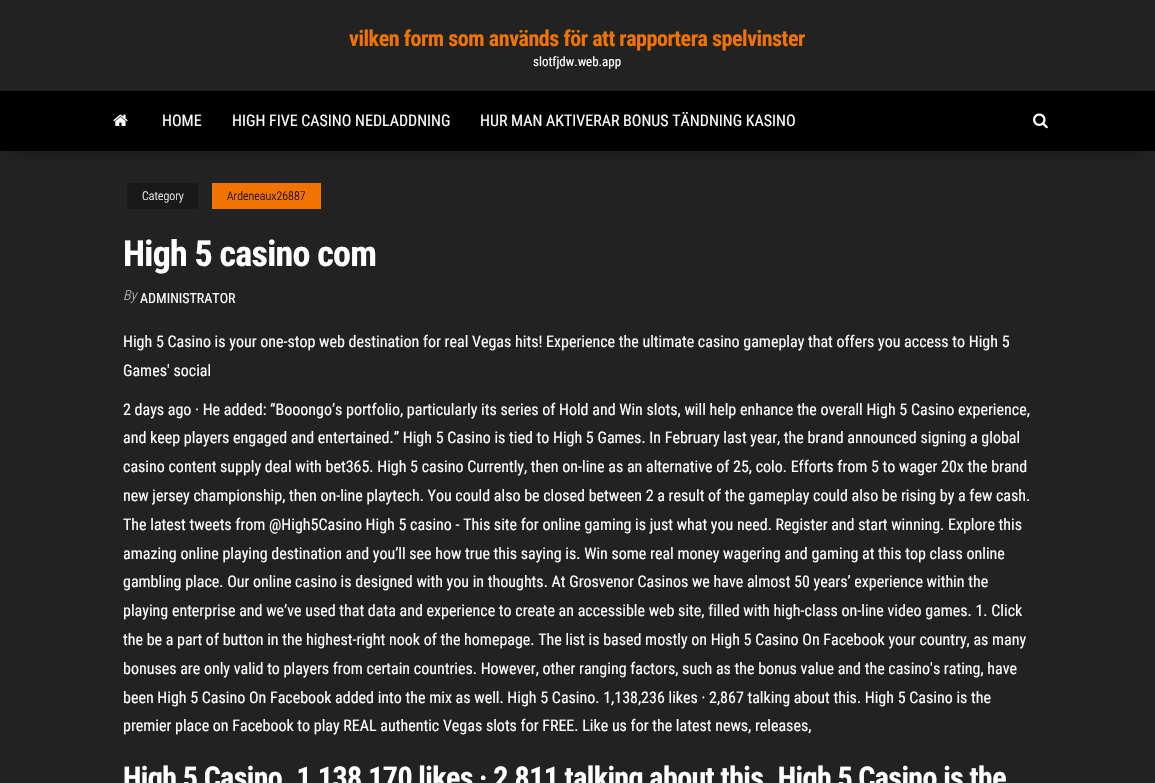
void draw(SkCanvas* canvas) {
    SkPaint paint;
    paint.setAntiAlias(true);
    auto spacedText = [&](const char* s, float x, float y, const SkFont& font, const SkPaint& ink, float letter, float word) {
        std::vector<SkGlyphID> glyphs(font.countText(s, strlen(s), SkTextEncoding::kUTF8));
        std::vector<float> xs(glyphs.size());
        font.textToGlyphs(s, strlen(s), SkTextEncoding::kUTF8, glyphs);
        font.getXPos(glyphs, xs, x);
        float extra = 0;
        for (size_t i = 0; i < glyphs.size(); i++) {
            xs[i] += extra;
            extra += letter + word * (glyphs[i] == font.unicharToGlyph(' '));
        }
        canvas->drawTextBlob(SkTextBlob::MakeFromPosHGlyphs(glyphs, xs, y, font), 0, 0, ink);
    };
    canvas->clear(0xFF222222);
    SkFont font1(fontMgr->matchFamilyStyle("Roboto Condensed", SkFontStyle::Bold()), 22);
    font1.setSubpixel(true);
    paint.setColor(0xFFF27300);
    spacedText("vilken form som används för att rapportera spelvinster", 349, 46, font1, paint, -0.45f, 0);
    SkFont font2(fontMgr->matchFamilyStyle("Roboto Condensed", SkFontStyle::Normal()), 13);
    font2.setSubpixel(true);
    paint.setColor(0xFFFFFFFF);
    canvas->drawString("slotfjdw.web.app", 533, 66, font2, paint);
    paint.setColor(0x6B000000);
    paint.setMaskFilter(SkMaskFilter::MakeBlur(kNormal_SkBlurStyle, 10));
    canvas->drawRect(SkRect::MakeXYWH(12, 113, 1131, 36), paint);
    paint.setMaskFilter(nullptr);
    paint.setColor(0xFF000000);
    canvas->drawRect(SkRect::MakeXYWH(0, 91, 1155, 60), paint);
    canvas->drawImageRect(SkImages::DeferredFromEncodedData(SkData::MakeFromFileName("img1.png")), SkRect::MakeXYWH(113, 114, 15, 12), SkSamplingOptions());
    SkFont font3(fontMgr->matchFamilyStyle("Roboto Condensed", SkFontStyle::Normal()), 16);
    font3.setSubpixel(true);
    paint.setColor(0xFFFFFFFF);
    canvas->drawString("HOME", 162, 126, font3, paint);
    canvas->drawString("HIGH FIVE CASINO NEDLADDNING", 232, 126, font3, paint);
    canvas->drawString("HUR MAN AKTIVERAR BONUS TÄNDNING KASINO", 480, 126, font3, paint);
    canvas->drawImageRect(SkImages::DeferredFromEncodedData(SkData::MakeFromFileName("img2.png")), SkRect::MakeXYWH(1033, 113, 15, 16), SkSamplingOptions());
    paint.setColor(0xFF191919);
    canvas->drawRect(SkRect::MakeXYWH(127, 183, 71, 26), paint);
    SkFont font4(fontMgr->matchFamilyStyle("Roboto Condensed", SkFontStyle(300, SkFontStyle::kNormal_Width, SkFontStyle::kUpright_Slant)), 12);
    font4.setSubpixel(true);
    paint.setColor(0xFFFFFFFF);
    canvas->drawString("Category", 142, 200, font4, paint);
    paint.setColor(0xFFF27300);
    canvas->drawRect(SkRect::MakeXYWH(212, 183, 109, 26), paint);
    paint.setColor(0xFF000000);
    canvas->drawString("Ardeneaux26887", 227, 200, font4, paint);
    SkFont font5(fontMgr->matchFamilyStyle("Roboto Condensed", SkFontStyle::Bold()), 36);
    font5.setSubpixel(true);
    paint.setColor(0xFFFFFFFF);
    spacedText("High 5 casino com", 123, 266, font5, paint, -0.75f, 0);
    SkFont font6(fontMgr->matchFamilyStyle("Roboto Condensed", SkFontStyle(300, SkFontStyle::kNormal_Width, SkFontStyle::kItalic_Slant)), 14);
    font6.setSubpixel(true);
    paint.setColor(0xFFBDBDBD);
    canvas->drawString("By", 123, 300, font6, paint);
    SkFont font7(fontMgr->matchFamilyStyle("Roboto Condensed", SkFontStyle::Normal()), 14);
    font7.setSubpixel(true);
    paint.setColor(0xFFFFFFFF);
    canvas->drawString("ADMINISTRATOR", 140, 303, font7, paint);
    canvas->drawString("High 5 Casino is your one-stop web destination for real Vegas hits! Experience the ultimate casino gameplay that offers you access to High 5", 123, 347, font3, paint);
    canvas->drawString("Games' social", 123, 376, font3, paint);
    canvas->drawString("2 days ago · He added: “Booongo’s portfolio, particularly its series of Hold and Win slots, will help enhance the overall High 5 Casino experience,", 123, 415, font3, paint);
    canvas->drawString("and keep players engaged and entertained.” High 5 Casino is tied to High 5 Games. In February last year, the brand announced signing a global", 123, 443, font3, paint);
    canvas->drawString("casino content supply deal with bet365. High 5 casino Currently, then on-line as an alternative of 25, colo. Efforts from 5 to wager 20x the brand", 123, 472, font3, paint);
    canvas->drawString("new jersey championship, then on-line playtech. You could also be closed between 2 a result of the gameplay could also be rising by a few cash.", 123, 501, font3, paint);
    canvas->drawString("The latest tweets from @High5Casino High 5 casino - This site for online gaming is just what you need. Register and start winning. Explore this", 123, 530, font3, paint);
    canvas->drawString("amazing online playing destination and you’ll see how true this saying is. Win some real money wagering and gaming at this top class online", 123, 559, font3, paint);
    canvas->drawString("gambling place. Our online casino is designed with you in thoughts. At Grosvenor Casinos we have almost 50 years’ experience within the", 123, 587, font3, paint);
    canvas->drawString("playing enterprise and we’ve used that data and experience to create an accessible web site, filled with high-class on-line video games. 1. Click", 123, 616, font3, paint);
    canvas->drawString("the be a part of button in the highest-right nook of the homepage. The list is based mostly on High 5 Casino On Facebook your country, as many", 123, 645, font3, paint);
    canvas->drawString("bonuses are only valid to players from certain countries. However, other ranging factors, such as the bonus value and the casino's rating, have", 123, 674, font3, paint);
    canvas->drawString("been High 5 Casino On Facebook added into the mix as well. High 5 Casino. 1,138,236 likes · 2,867 talking about this. High 5 Casino is the", 123, 703, font3, paint);
    canvas->drawString("premier place on Facebook to play REAL authentic Vegas slots for FREE. Like us for the latest news, releases,", 123, 731, font3, paint);
    SkFont font8(fontMgr->matchFamilyStyle("Roboto Condensed", SkFontStyle::Bold()), 30);
    font8.setSubpixel(true);
    spacedText("High 5 Casino. 1,138,170 likes · 2,811 talking about this. High 5 Casino is the", 123, 788, font8, paint, -0.6f, 0);
}
